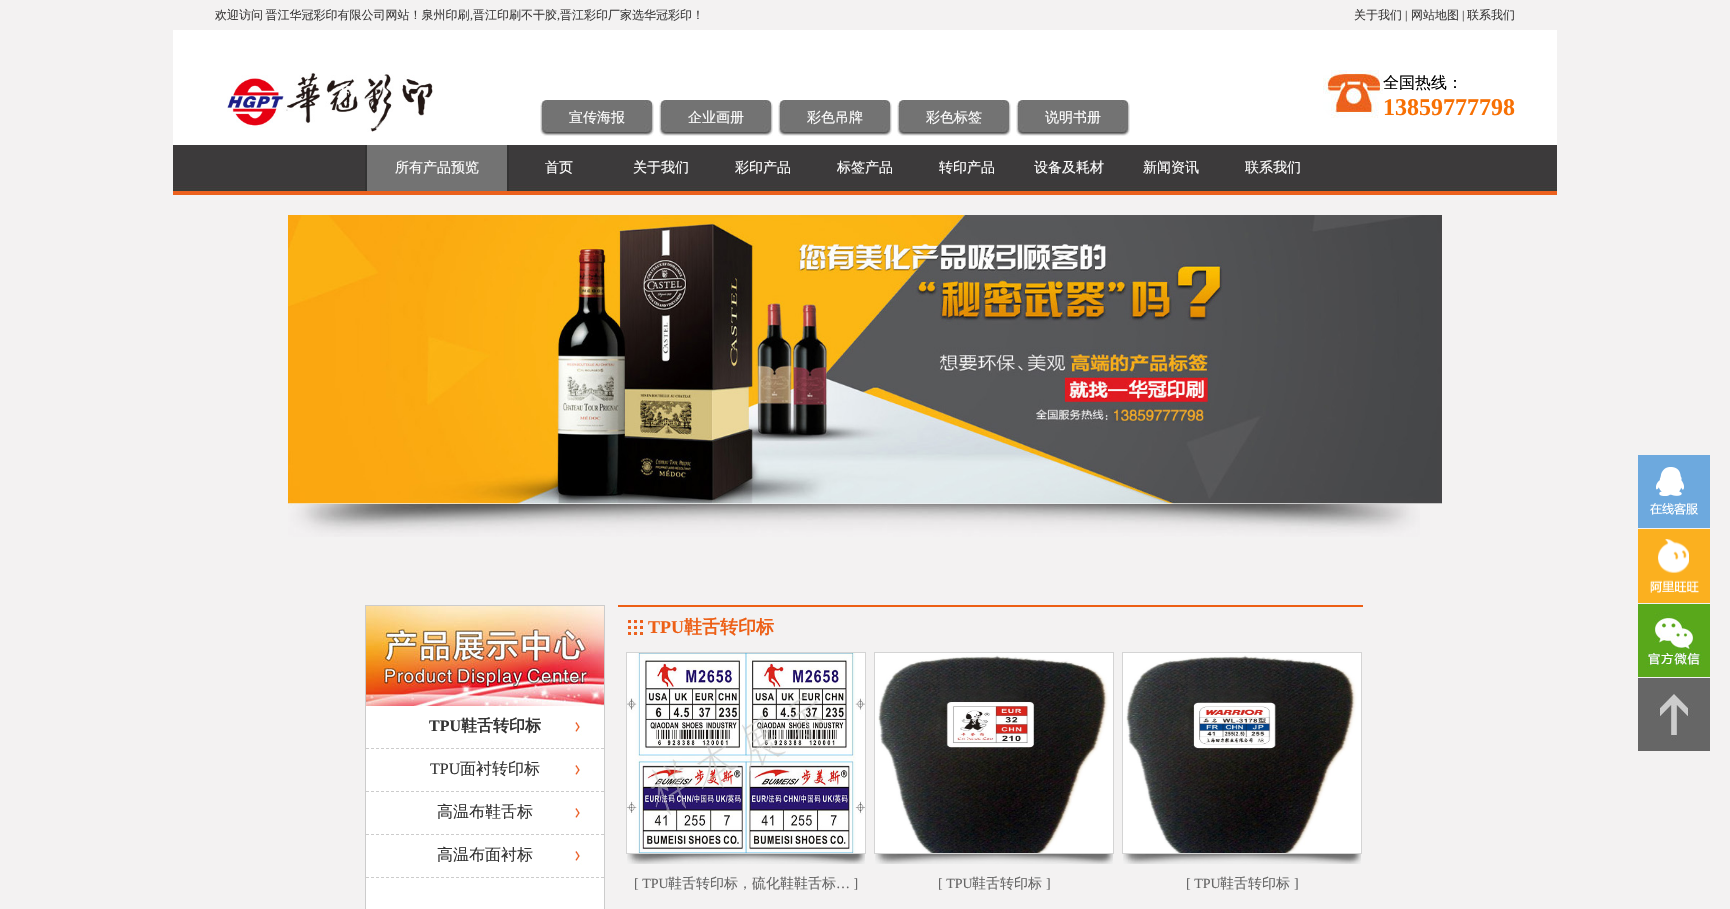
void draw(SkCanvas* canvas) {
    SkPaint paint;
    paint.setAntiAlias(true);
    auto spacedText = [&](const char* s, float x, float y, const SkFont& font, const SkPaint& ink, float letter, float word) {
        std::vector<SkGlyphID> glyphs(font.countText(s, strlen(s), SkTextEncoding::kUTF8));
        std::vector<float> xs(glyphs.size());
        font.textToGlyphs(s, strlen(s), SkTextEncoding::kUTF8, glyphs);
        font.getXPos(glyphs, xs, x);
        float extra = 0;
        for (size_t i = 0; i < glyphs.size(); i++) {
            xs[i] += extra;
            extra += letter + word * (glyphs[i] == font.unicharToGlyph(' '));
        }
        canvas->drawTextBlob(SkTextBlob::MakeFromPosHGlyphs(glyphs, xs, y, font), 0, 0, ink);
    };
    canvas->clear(0xFFF3F2F2);
    SkFont font1(fontMgr->matchFamilyStyle("WenQuanYi Zen Hei", SkFontStyle(500, SkFontStyle::kNormal_Width, SkFontStyle::kUpright_Slant)), 12);
    font1.setSubpixel(true);
    paint.setColor(0xFF3C3B3B);
    spacedText("欢迎访问 晋江华冠彩印有限公司网站！泉州印刷", 215, 19, font1, paint, 0, -1);
    SkFont font2(fontMgr->matchFamilyStyle("Liberation Serif", SkFontStyle::Normal()), 12);
    font2.setSubpixel(true);
    canvas->drawString(",", 470, 19, font2, paint);
    canvas->drawString("晋江印刷不干胶", 473, 19, font1, paint);
    canvas->drawString(",", 557, 19, font2, paint);
    canvas->drawString("晋江彩印厂家选华冠彩印！", 560, 19, font1, paint);
    canvas->drawString("关于我们", 1354, 19, font1, paint);
    canvas->drawString("|", 1405, 19, font2, paint);
    canvas->drawString("网站地图", 1411, 19, font1, paint);
    canvas->drawString("|", 1462, 19, font2, paint);
    canvas->drawString("联系我们", 1467, 19, font1, paint);
    paint.setColor(0xFFFFFFFF);
    canvas->drawRect(SkRect::MakeXYWH(173, 30, 1384, 115), paint);
    canvas->drawImageRect(SkImages::DeferredFromEncodedData(SkData::MakeFromFileName("img1.png")), SkRect::MakeXYWH(227, 72, 207, 60), SkSamplingOptions());
    canvas->drawImageRect(SkImages::DeferredFromEncodedData(SkData::MakeFromFileName("img2.png")), SkRect::MakeXYWH(1323, 70, 60, 48), SkSamplingOptions());
    SkFont font3(fontMgr->matchFamilyStyle("WenQuanYi Zen Hei", SkFontStyle(500, SkFontStyle::kNormal_Width, SkFontStyle::kUpright_Slant)), 16);
    font3.setSubpixel(true);
    paint.setColor(0xFF000000);
    canvas->drawString("全国热线：", 1383, 88, font3, paint);
    SkFont font4(fontMgr->matchFamilyStyle("Liberation Serif", SkFontStyle::Bold()), 24);
    font4.setSubpixel(true);
    paint.setColor(0xFFF77004);
    canvas->drawString("13859777798", 1383, 115, font4, paint);
    canvas->drawImageRect(SkImages::DeferredFromEncodedData(SkData::MakeFromFileName("img3.png")), SkRect::MakeXYWH(540, 100, 114, 36), SkSamplingOptions());
    SkFont font5(fontMgr->matchFamilyStyle("WenQuanYi Zen Hei", SkFontStyle(500, SkFontStyle::kNormal_Width, SkFontStyle::kUpright_Slant)), 14);
    font5.setSubpixel(true);
    paint.setColor(0xFFFFFFFF);
    canvas->drawString("宣传海报", 569, 122, font5, paint);
    canvas->drawImageRect(SkImages::DeferredFromEncodedData(SkData::MakeFromFileName("img3.png")), SkRect::MakeXYWH(659, 100, 114, 36), SkSamplingOptions());
    canvas->drawString("企业画册", 688, 122, font5, paint);
    canvas->drawImageRect(SkImages::DeferredFromEncodedData(SkData::MakeFromFileName("img3.png")), SkRect::MakeXYWH(778, 100, 114, 36), SkSamplingOptions());
    canvas->drawString("彩色吊牌", 807, 122, font5, paint);
    canvas->drawImageRect(SkImages::DeferredFromEncodedData(SkData::MakeFromFileName("img3.png")), SkRect::MakeXYWH(897, 100, 114, 36), SkSamplingOptions());
    canvas->drawString("彩色标签", 926, 122, font5, paint);
    canvas->drawImageRect(SkImages::DeferredFromEncodedData(SkData::MakeFromFileName("img3.png")), SkRect::MakeXYWH(1016, 100, 114, 36), SkSamplingOptions());
    canvas->drawString("说明书册", 1045, 122, font5, paint);
    canvas->drawImageRect(SkImages::DeferredFromEncodedData(SkData::MakeFromFileName("img4.png")), SkRect::MakeXYWH(173, 145, 1384, 50), SkSamplingOptions());
    paint.setColor(0xFFEB611D);
    canvas->drawRect(SkRect::MakeXYWH(365, 191, 1000, 2), paint);
    paint.setColor(0xFF333333);
    canvas->drawRect(SkRect::MakeXYWH(507, 145, 2, 46), paint);
    canvas->drawRect(SkRect::MakeXYWH(365, 145, 2, 46), paint);
    paint.setColor(0xFF737373);
    canvas->drawRect(SkRect::MakeXYWH(367, 145, 140, 46), paint);
    paint.setColor(0xFFFFFFFF);
    canvas->drawString("所有产品预览", 395, 172, font5, paint);
    canvas->drawString("首页", 545, 172, font5, paint);
    canvas->drawString("关于我们", 633, 172, font5, paint);
    canvas->drawString("彩印产品", 735, 172, font5, paint);
    canvas->drawString("标签产品", 837, 172, font5, paint);
    canvas->drawString("转印产品", 939, 172, font5, paint);
    canvas->drawString("设备及耗材", 1034, 172, font5, paint);
    canvas->drawString("新闻资讯", 1143, 172, font5, paint);
    canvas->drawString("联系我们", 1245, 172, font5, paint);
    canvas->drawImageRect(SkImages::DeferredFromEncodedData(SkData::MakeFromFileName("img5.png")), SkRect::MakeXYWH(288, 215, 1154, 289), SkSamplingOptions());
    canvas->drawImageRect(SkImages::DeferredFromEncodedData(SkData::MakeFromFileName("img6.png")), SkRect::MakeXYWH(288, 504, 1132, 33), SkSamplingOptions());
    paint.setColor(0xFF6DA9DE);
    canvas->drawRect(SkRect::MakeXYWH(1638, 455, 72, 73), paint);
    canvas->drawImageRect(SkImages::DeferredFromEncodedData(SkData::MakeFromFileName("img7.png")), SkRect::MakeXYWH(1650, 467, 48, 48), SkSamplingOptions());
    paint.setColor(0xFFFBB01F);
    canvas->drawRect(SkRect::MakeXYWH(1638, 529, 72, 74), paint);
    canvas->drawImageRect(SkImages::DeferredFromEncodedData(SkData::MakeFromFileName("img8.png")), SkRect::MakeXYWH(1650, 539, 49, 54), SkSamplingOptions());
    canvas->drawImageRect(SkImages::DeferredFromEncodedData(SkData::MakeFromFileName("img9.png")), SkRect::MakeXYWH(1638, 604, 72, 73), SkSamplingOptions());
    canvas->drawImageRect(SkImages::DeferredFromEncodedData(SkData::MakeFromFileName("img10.png")), SkRect::MakeXYWH(1638, 678, 72, 73), SkSamplingOptions());
    paint.setColor(0xFFFFFFFF);
    canvas->drawRect(SkRect::MakeXYWH(366, 706, 238, 203), paint);
    paint.setStyle(SkPaint::kStroke_Style);
    paint.setStrokeWidth(1);
    paint.setColor(0xFFCCCCCC);
    canvas->drawRect(SkRect::MakeXYWH(365.5f, 605.5f, 239, 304), paint);
    canvas->drawImageRect(SkImages::DeferredFromEncodedData(SkData::MakeFromFileName("img11.png")), SkRect::MakeXYWH(366, 606, 238, 100), SkSamplingOptions());
    canvas->drawImageRect(SkImages::DeferredFromEncodedData(SkData::MakeFromFileName("img12.png")), SkRect::MakeXYWH(574, 722, 8, 14), SkSamplingOptions());
    paint.setPathEffect(SkDashPathEffect::Make({{3, 2}}, 0));
    canvas->drawPath(SkPathBuilder().moveTo(366, 748.5f).lineTo(604, 748.5f).detach(), paint);
    paint.setPathEffect(nullptr);
    SkFont font6(fontMgr->matchFamilyStyle("Liberation Serif", SkFontStyle::Bold()), 16);
    font6.setSubpixel(true);
    paint.setStyle(SkPaint::kFill_Style);
    paint.setColor(0xFF333333);
    canvas->drawString("TPU", 429, 731, font6, paint);
    SkFont font7(fontMgr->matchFamilyStyle("WenQuanYi Zen Hei", SkFontStyle::Bold()), 16);
    font7.setSubpixel(true);
    canvas->drawString("鞋舌转印标", 461, 731, font7, paint);
    canvas->drawImageRect(SkImages::DeferredFromEncodedData(SkData::MakeFromFileName("img12.png")), SkRect::MakeXYWH(574, 765, 8, 14), SkSamplingOptions());
    paint.setStyle(SkPaint::kStroke_Style);
    paint.setColor(0xFFCCCCCC);
    paint.setPathEffect(SkDashPathEffect::Make({{3, 2}}, 0));
    canvas->drawPath(SkPathBuilder().moveTo(366, 791.5f).lineTo(604, 791.5f).detach(), paint);
    paint.setPathEffect(nullptr);
    SkFont font8(fontMgr->matchFamilyStyle("Liberation Serif", SkFontStyle::Normal()), 16);
    font8.setSubpixel(true);
    paint.setStyle(SkPaint::kFill_Style);
    paint.setColor(0xFF333333);
    canvas->drawString("TPU", 430, 774, font8, paint);
    canvas->drawString("面衬转印标", 460, 774, font3, paint);
    canvas->drawImageRect(SkImages::DeferredFromEncodedData(SkData::MakeFromFileName("img12.png")), SkRect::MakeXYWH(574, 808, 8, 14), SkSamplingOptions());
    paint.setStyle(SkPaint::kStroke_Style);
    paint.setColor(0xFFCCCCCC);
    paint.setPathEffect(SkDashPathEffect::Make({{3, 2}}, 0));
    canvas->drawPath(SkPathBuilder().moveTo(366, 834.5f).lineTo(604, 834.5f).detach(), paint);
    paint.setPathEffect(nullptr);
    paint.setStyle(SkPaint::kFill_Style);
    paint.setColor(0xFF333333);
    canvas->drawString("高温布鞋舌标", 437, 817, font3, paint);
    canvas->drawImageRect(SkImages::DeferredFromEncodedData(SkData::MakeFromFileName("img12.png")), SkRect::MakeXYWH(574, 851, 8, 14), SkSamplingOptions());
    paint.setStyle(SkPaint::kStroke_Style);
    paint.setColor(0xFFCCCCCC);
    paint.setPathEffect(SkDashPathEffect::Make({{3, 2}}, 0));
    canvas->drawPath(SkPathBuilder().moveTo(366, 877.5f).lineTo(604, 877.5f).detach(), paint);
    paint.setPathEffect(nullptr);
    paint.setStyle(SkPaint::kFill_Style);
    paint.setColor(0xFF333333);
    canvas->drawString("高温布面衬标", 437, 860, font3, paint);
    paint.setColor(0xFFED5F15);
    canvas->drawRect(SkRect::MakeXYWH(618, 605, 745, 2), paint);
    canvas->drawImageRect(SkImages::DeferredFromEncodedData(SkData::MakeFromFileName("img13.png")), SkRect::MakeXYWH(628, 620, 15, 15), SkSamplingOptions());
    SkFont font9(fontMgr->matchFamilyStyle("Liberation Serif", SkFontStyle::Bold()), 18);
    font9.setSubpixel(true);
    canvas->drawString("TPU", 648, 633, font9, paint);
    SkFont font10(fontMgr->matchFamilyStyle("WenQuanYi Zen Hei", SkFontStyle::Bold()), 18);
    font10.setSubpixel(true);
    canvas->drawString("鞋舌转印标", 684, 633, font10, paint);
    paint.setStyle(SkPaint::kStroke_Style);
    paint.setColor(0xFFD4D4D4);
    canvas->drawRect(SkRect::MakeXYWH(626.5f, 652.5f, 239, 201), paint);
    canvas->drawImageRect(SkImages::DeferredFromEncodedData(SkData::MakeFromFileName("img14.png")), SkRect::MakeXYWH(627, 653, 238, 200), SkSamplingOptions());
    canvas->drawImageRect(SkImages::DeferredFromEncodedData(SkData::MakeFromFileName("img15.png")), SkRect::MakeXYWH(627, 854, 238, 10), SkSamplingOptions());
    SkFont font11(fontMgr->matchFamilyStyle("Liberation Serif", SkFontStyle::Normal()), 14);
    font11.setSubpixel(true);
    paint.setStyle(SkPaint::kFill_Style);
    paint.setColor(0xFF666666);
    canvas->drawString("[ TPU", 634, 888, font11, paint);
    canvas->drawString("鞋舌转印标，硫化鞋鞋舌标", 668, 888, font5, paint);
    canvas->drawString("… ]", 836, 888, font11, paint);
    paint.setStyle(SkPaint::kStroke_Style);
    paint.setColor(0xFFD4D4D4);
    canvas->drawRect(SkRect::MakeXYWH(874.5f, 652.5f, 239, 201), paint);
    canvas->drawImageRect(SkImages::DeferredFromEncodedData(SkData::MakeFromFileName("img16.png")), SkRect::MakeXYWH(875, 653, 238, 200), SkSamplingOptions());
    canvas->drawImageRect(SkImages::DeferredFromEncodedData(SkData::MakeFromFileName("img15.png")), SkRect::MakeXYWH(875, 854, 238, 10), SkSamplingOptions());
    paint.setStyle(SkPaint::kFill_Style);
    paint.setColor(0xFF666666);
    canvas->drawString("[ TPU", 938, 888, font11, paint);
    canvas->drawString("鞋舌转印标", 972, 888, font5, paint);
    canvas->drawString("]", 1046, 888, font11, paint);
    paint.setStyle(SkPaint::kStroke_Style);
    paint.setColor(0xFFD4D4D4);
    canvas->drawRect(SkRect::MakeXYWH(1122.5f, 652.5f, 239, 201), paint);
    canvas->drawImageRect(SkImages::DeferredFromEncodedData(SkData::MakeFromFileName("img17.png")), SkRect::MakeXYWH(1123, 653, 238, 200), SkSamplingOptions());
    canvas->drawImageRect(SkImages::DeferredFromEncodedData(SkData::MakeFromFileName("img15.png")), SkRect::MakeXYWH(1123, 854, 238, 10), SkSamplingOptions());
    paint.setStyle(SkPaint::kFill_Style);
    paint.setColor(0xFF666666);
    canvas->drawString("[ TPU", 1186, 888, font11, paint);
    canvas->drawString("鞋舌转印标", 1220, 888, font5, paint);
    canvas->drawString("]", 1294, 888, font11, paint);
}
